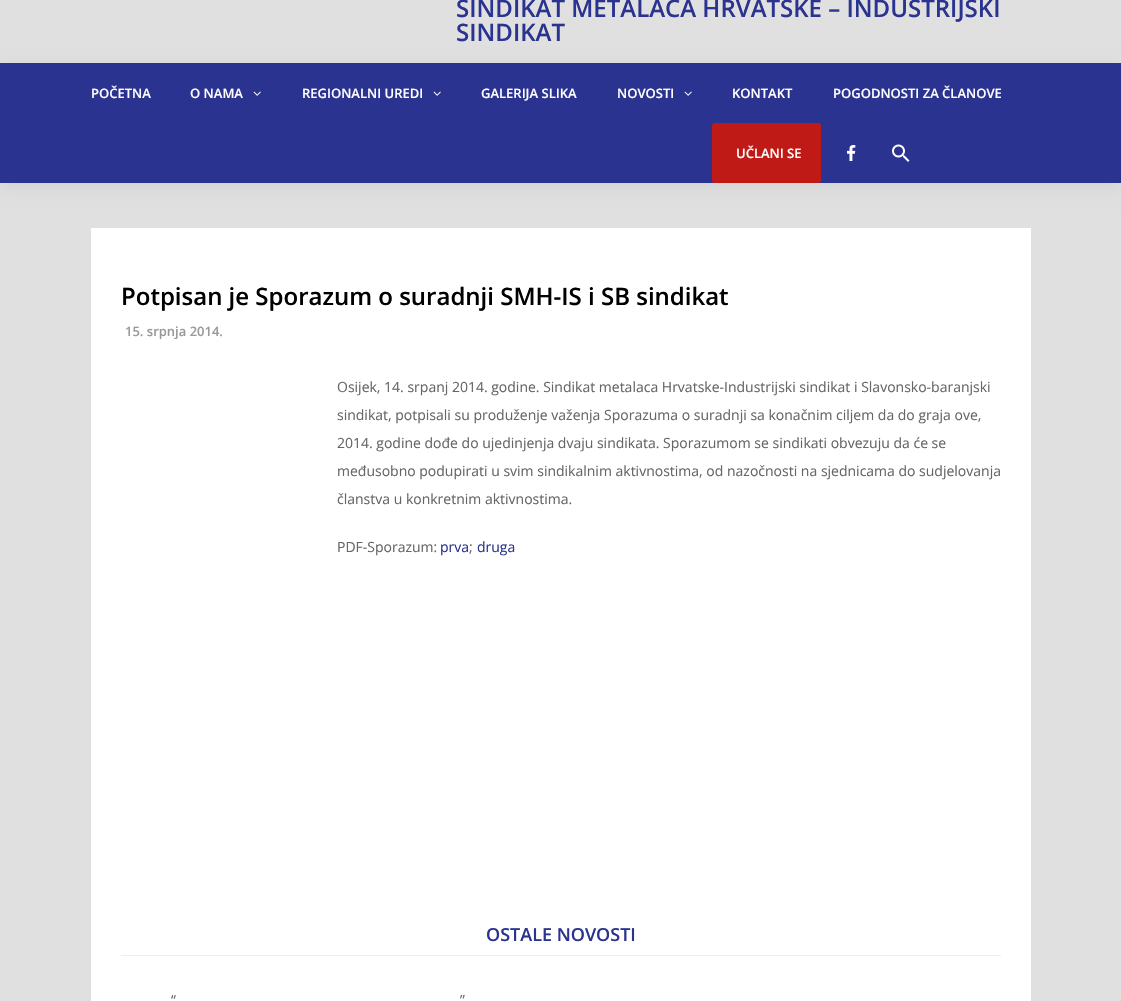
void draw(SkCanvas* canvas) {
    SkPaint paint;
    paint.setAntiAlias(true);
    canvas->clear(0xFFE0E0E0);
    SkFont font1(fontMgr->matchFamilyStyle("Open Sans", SkFontStyle(600, SkFontStyle::kNormal_Width, SkFontStyle::kUpright_Slant)), 24);
    font1.setSubpixel(true);
    paint.setColor(0xFF2A338F);
    canvas->drawString("SINDIKAT METALACA HRVATSKE – INDUSTRIJSKI", 456, 17, font1, paint);
    canvas->drawString("SINDIKAT", 456, 41, font1, paint);
    paint.setColor(0x0D000000);
    paint.setMaskFilter(SkMaskFilter::MakeBlur(kNormal_SkBlurStyle, 7.5f));
    canvas->drawRect(SkRect::MakeXYWH(0, 68, 1121, 120), paint);
    paint.setMaskFilter(nullptr);
    paint.setColor(0xFF2A338F);
    canvas->drawRect(SkRect::MakeXYWH(0, 63, 1121, 120), paint);
    SkFont font2(fontMgr->matchFamilyStyle("Open Sans", SkFontStyle(600, SkFontStyle::kNormal_Width, SkFontStyle::kUpright_Slant)), 13);
    font2.setSubpixel(true);
    paint.setColor(0xFFFFFFFF);
    canvas->drawString("POČETNA", 91, 98, font2, paint);
    canvas->drawString("O NAMA", 190, 98, font2, paint);
    canvas->drawImageRect(SkImages::DeferredFromEncodedData(SkData::MakeFromFileName("img1.png")), SkRect::MakeXYWH(253, 91, 8, 5), SkSamplingOptions());
    canvas->drawString("REGIONALNI UREDI", 302, 98, font2, paint);
    canvas->drawImageRect(SkImages::DeferredFromEncodedData(SkData::MakeFromFileName("img1.png")), SkRect::MakeXYWH(433, 91, 8, 5), SkSamplingOptions());
    canvas->drawString("GALERIJA SLIKA", 481, 98, font2, paint);
    canvas->drawString("NOVOSTI", 617, 98, font2, paint);
    canvas->drawImageRect(SkImages::DeferredFromEncodedData(SkData::MakeFromFileName("img1.png")), SkRect::MakeXYWH(684, 91, 8, 5), SkSamplingOptions());
    canvas->drawString("KONTAKT", 732, 98, font2, paint);
    canvas->drawString("POGODNOSTI ZA ČLANOVE", 833, 98, font2, paint);
    paint.setColor(0xFFBF1A16);
    canvas->drawRoundRect(SkRect::MakeXYWH(712, 123, 109, 60), 3, 3, paint);
    paint.setColor(0xFFFFFFFF);
    canvas->drawString("UČLANI SE", 736, 158, font2, paint);
    canvas->drawImageRect(SkImages::DeferredFromEncodedData(SkData::MakeFromFileName("img2.png")), SkRect::MakeXYWH(847, 145, 9, 16), SkSamplingOptions());
    canvas->drawImageRect(SkImages::DeferredFromEncodedData(SkData::MakeFromFileName("img3.png")), SkRect::MakeXYWH(892, 144, 18, 18), SkSamplingOptions());
    canvas->drawRect(SkRect::MakeXYWH(91, 228, 940, 773), paint);
    paint.setColor(0xFF000000);
    canvas->drawString("Potpisan je Sporazum o suradnji SMH-IS i SB sindikat", 121, 305, font1, paint);
    paint.setColor(0xFF999999);
    canvas->drawString("15. srpnja 2014.", 125, 336, font2, paint);
    SkFont font3(fontMgr->matchFamilyStyle("Open Sans", SkFontStyle::Normal()), 14);
    font3.setSubpixel(true);
    paint.setColor(0xFF666666);
    canvas->drawString("Osijek, 14. srpanj 2014. godine. Sindikat metalaca Hrvatske-Industrijski sindikat i Slavonsko-baranjski", 337, 392, font3, paint);
    canvas->drawString("sindikat, potpisali su produženje važenja Sporazuma o suradnji sa konačnim ciljem da do graja ove,", 337, 420, font3, paint);
    canvas->drawString("2014. godine dođe do ujedinjenja dvaju sindikata. Sporazumom se sindikati obvezuju da će se", 337, 448, font3, paint);
    canvas->drawString("međusobno podupirati u svim sindikalnim aktivnostima, od nazočnosti na sjednicama do sudjelovanja", 337, 476, font3, paint);
    canvas->drawString("članstva u konkretnim aktivnostima.", 337, 504, font3, paint);
    canvas->drawString("PDF-Sporazum:", 337, 552, font3, paint);
    paint.setColor(0xFF2A338F);
    canvas->drawString("prva", 440, 552, font3, paint);
    paint.setColor(0xFF666666);
    canvas->drawString(";", 469, 552, font3, paint);
    paint.setColor(0xFF2A338F);
    canvas->drawString("druga", 477, 552, font3, paint);
    SkFont font4(fontMgr->matchFamilyStyle("Open Sans", SkFontStyle(600, SkFontStyle::kNormal_Width, SkFontStyle::kUpright_Slant)), 18);
    font4.setSubpixel(true);
    canvas->drawString("OSTALE NOVOSTI", 486, 941, font4, paint);
    paint.setColor(0xFFEEEEEE);
    canvas->drawRect(SkRect::MakeXYWH(121, 955, 880, 1), paint);
    paint.setColor(0xFF666666);
    canvas->drawString("“", 171, 1005, font3, paint);
    canvas->drawString("”", 460, 1005, font3, paint);
}
